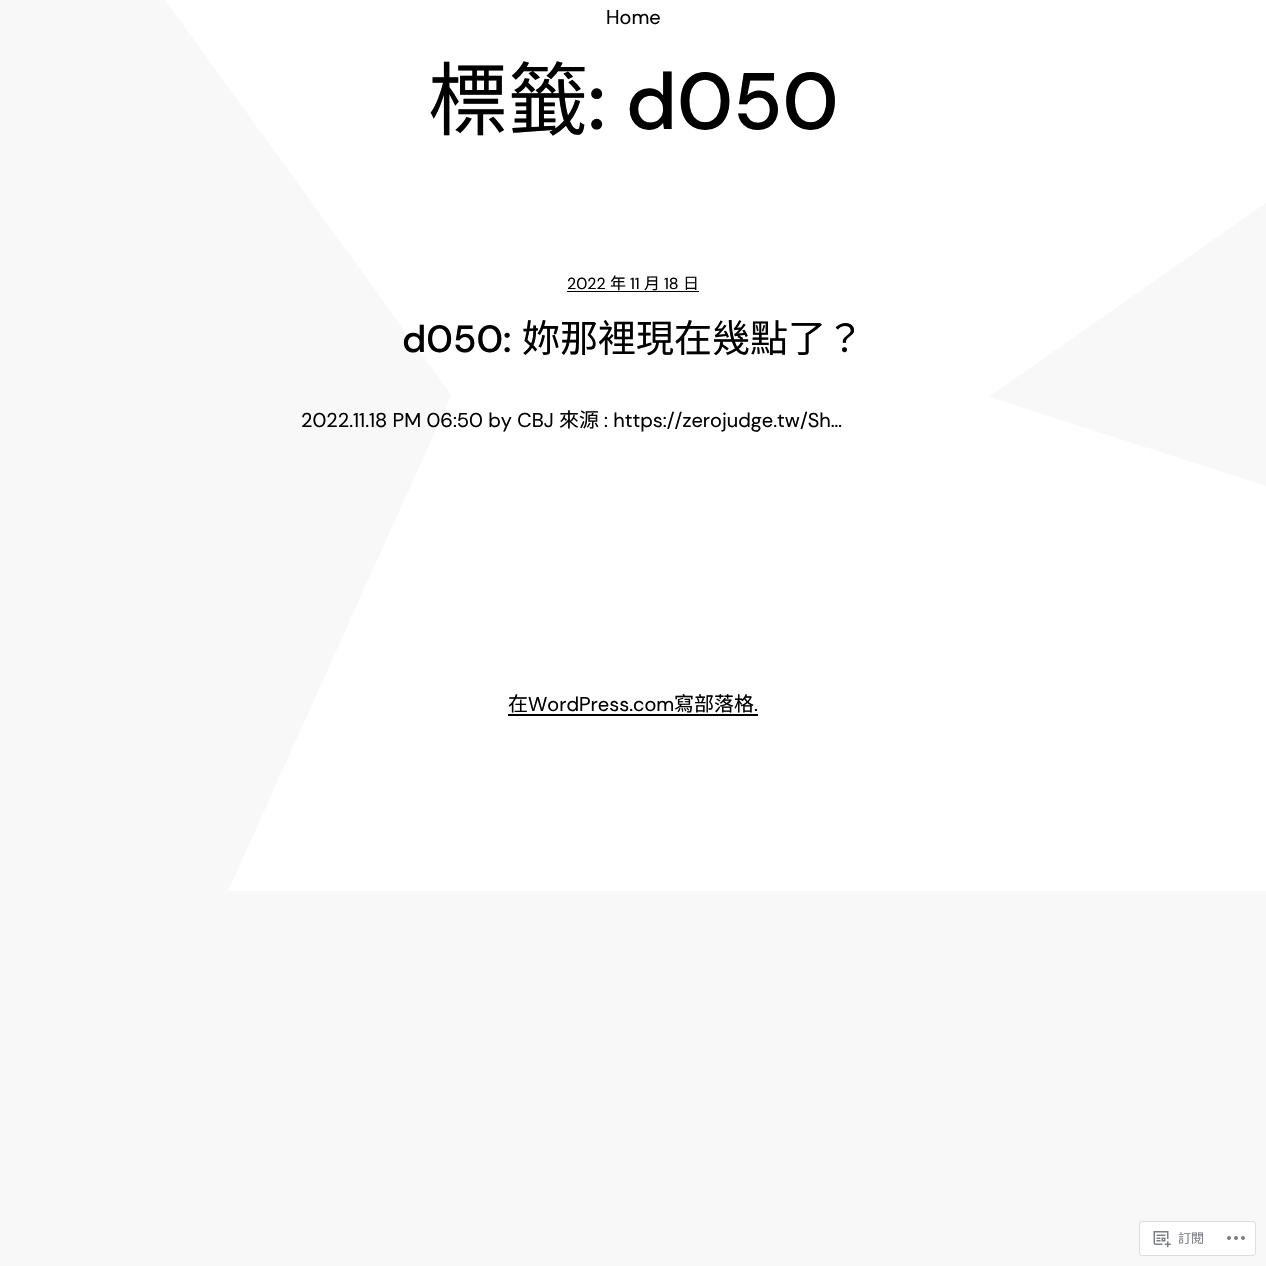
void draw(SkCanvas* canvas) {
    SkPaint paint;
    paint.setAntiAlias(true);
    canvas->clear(0xFFF8F8F8);
    paint.setColor(0xFFFFFFFF);
    canvas->drawPath(SkPathBuilder().moveTo(165, 0).lineTo(633, 646).lineTo(1266, 203).lineTo(1266, 0).close().detach(), paint);
    SkFont font1(fontMgr->matchFamilyStyle("DM Sans", SkFontStyle::Normal()), 20);
    font1.setSubpixel(true);
    paint.setColor(0xFF000000);
    canvas->drawString("Home", 606, 24, font1, paint);
    SkFont font2(fontMgr->matchFamilyStyle("Noto Sans CJK TC", SkFontStyle::Normal()), 80);
    font2.setSubpixel(true);
    canvas->drawString("標籤", 428, 129, font2, paint);
    SkFont font3(fontMgr->matchFamilyStyle("DM Sans", SkFontStyle(500, SkFontStyle::kNormal_Width, SkFontStyle::kUpright_Slant)), 80);
    font3.setSubpixel(true);
    canvas->drawString(": d050", 588, 129, font3, paint);
    paint.setColor(0xFFFFFFFF);
    canvas->drawPath(SkPathBuilder().moveTo(519, 245).lineTo(228, 891).lineTo(1266, 891).lineTo(1266, 486).close().detach(), paint);
    SkFont font4(fontMgr->matchFamilyStyle("DM Sans", SkFontStyle::Normal()), 16);
    font4.setSubpixel(true);
    paint.setColor(0xFF000000);
    canvas->drawString("2022", 567, 289, font4, paint);
    canvas->drawRect(SkRect::MakeXYWH(567, 291, 132, 1), paint);
    SkFont font5(fontMgr->matchFamilyStyle("Noto Sans CJK TC", SkFontStyle::Normal()), 16);
    font5.setSubpixel(true);
    canvas->drawString("年", 610, 289, font5, paint);
    canvas->drawString("11", 630, 289, font4, paint);
    canvas->drawString("月", 644, 289, font5, paint);
    canvas->drawString("18", 664, 289, font4, paint);
    canvas->drawString("日", 683, 289, font5, paint);
    SkFont font6(fontMgr->matchFamilyStyle("DM Sans", SkFontStyle(500, SkFontStyle::kNormal_Width, SkFontStyle::kUpright_Slant)), 38);
    font6.setSubpixel(true);
    canvas->drawString("d050:", 402, 352, font6, paint);
    SkFont font7(fontMgr->matchFamilyStyle("Noto Sans CJK TC", SkFontStyle::Normal()), 38);
    font7.setSubpixel(true);
    canvas->drawString("妳那裡現在幾點了？", 522, 352, font7, paint);
    canvas->drawString("2022.11.18 PM 06:50 by CBJ", 301, 427, font1, paint);
    SkFont font8(fontMgr->matchFamilyStyle("Noto Sans CJK TC", SkFontStyle::Normal()), 20);
    font8.setSubpixel(true);
    canvas->drawString("來源", 559, 427, font8, paint);
    canvas->drawString(": https://zerojudge.tw/Sh…", 604, 427, font1, paint);
    canvas->drawString("在", 508, 711, font8, paint);
    canvas->drawString("WordPress.com", 528, 711, font1, paint);
    canvas->drawString("寫部落格", 674, 711, font8, paint);
    canvas->drawString(".", 754, 711, font1, paint);
    canvas->drawRect(SkRect::MakeXYWH(508, 714, 250, 2), paint);
    paint.setColor(0xFFFFFFFF);
    canvas->drawRoundRect(SkRect::MakeXYWH(1139.5f, 1221.5f, 116, 34), 2.5f, 2.5f, paint);
    paint.setStyle(SkPaint::kStroke_Style);
    paint.setStrokeWidth(1);
    paint.setColor(0xFFDDDDDF);
    canvas->drawRoundRect(SkRect::MakeXYWH(1139.5f, 1221.5f, 116, 34), 2.5f, 2.5f, paint);
    canvas->drawImageRect(SkImages::DeferredFromEncodedData(SkData::MakeFromFileName("img1.png")), SkRect::MakeXYWH(1153, 1231, 18, 17), SkSamplingOptions());
    SkFont font9(fontMgr->matchFamilyStyle("Noto Sans CJK TC", SkFontStyle::Normal()), 13);
    font9.setSubpixel(true);
    paint.setStyle(SkPaint::kFill_Style);
    paint.setColor(0xFF7B7E84);
    canvas->drawString("訂閱", 1178, 1243, font9, paint);
    canvas->drawImageRect(SkImages::DeferredFromEncodedData(SkData::MakeFromFileName("img2.png")), SkRect::MakeXYWH(1227, 1236, 18, 4), SkSamplingOptions());
}
